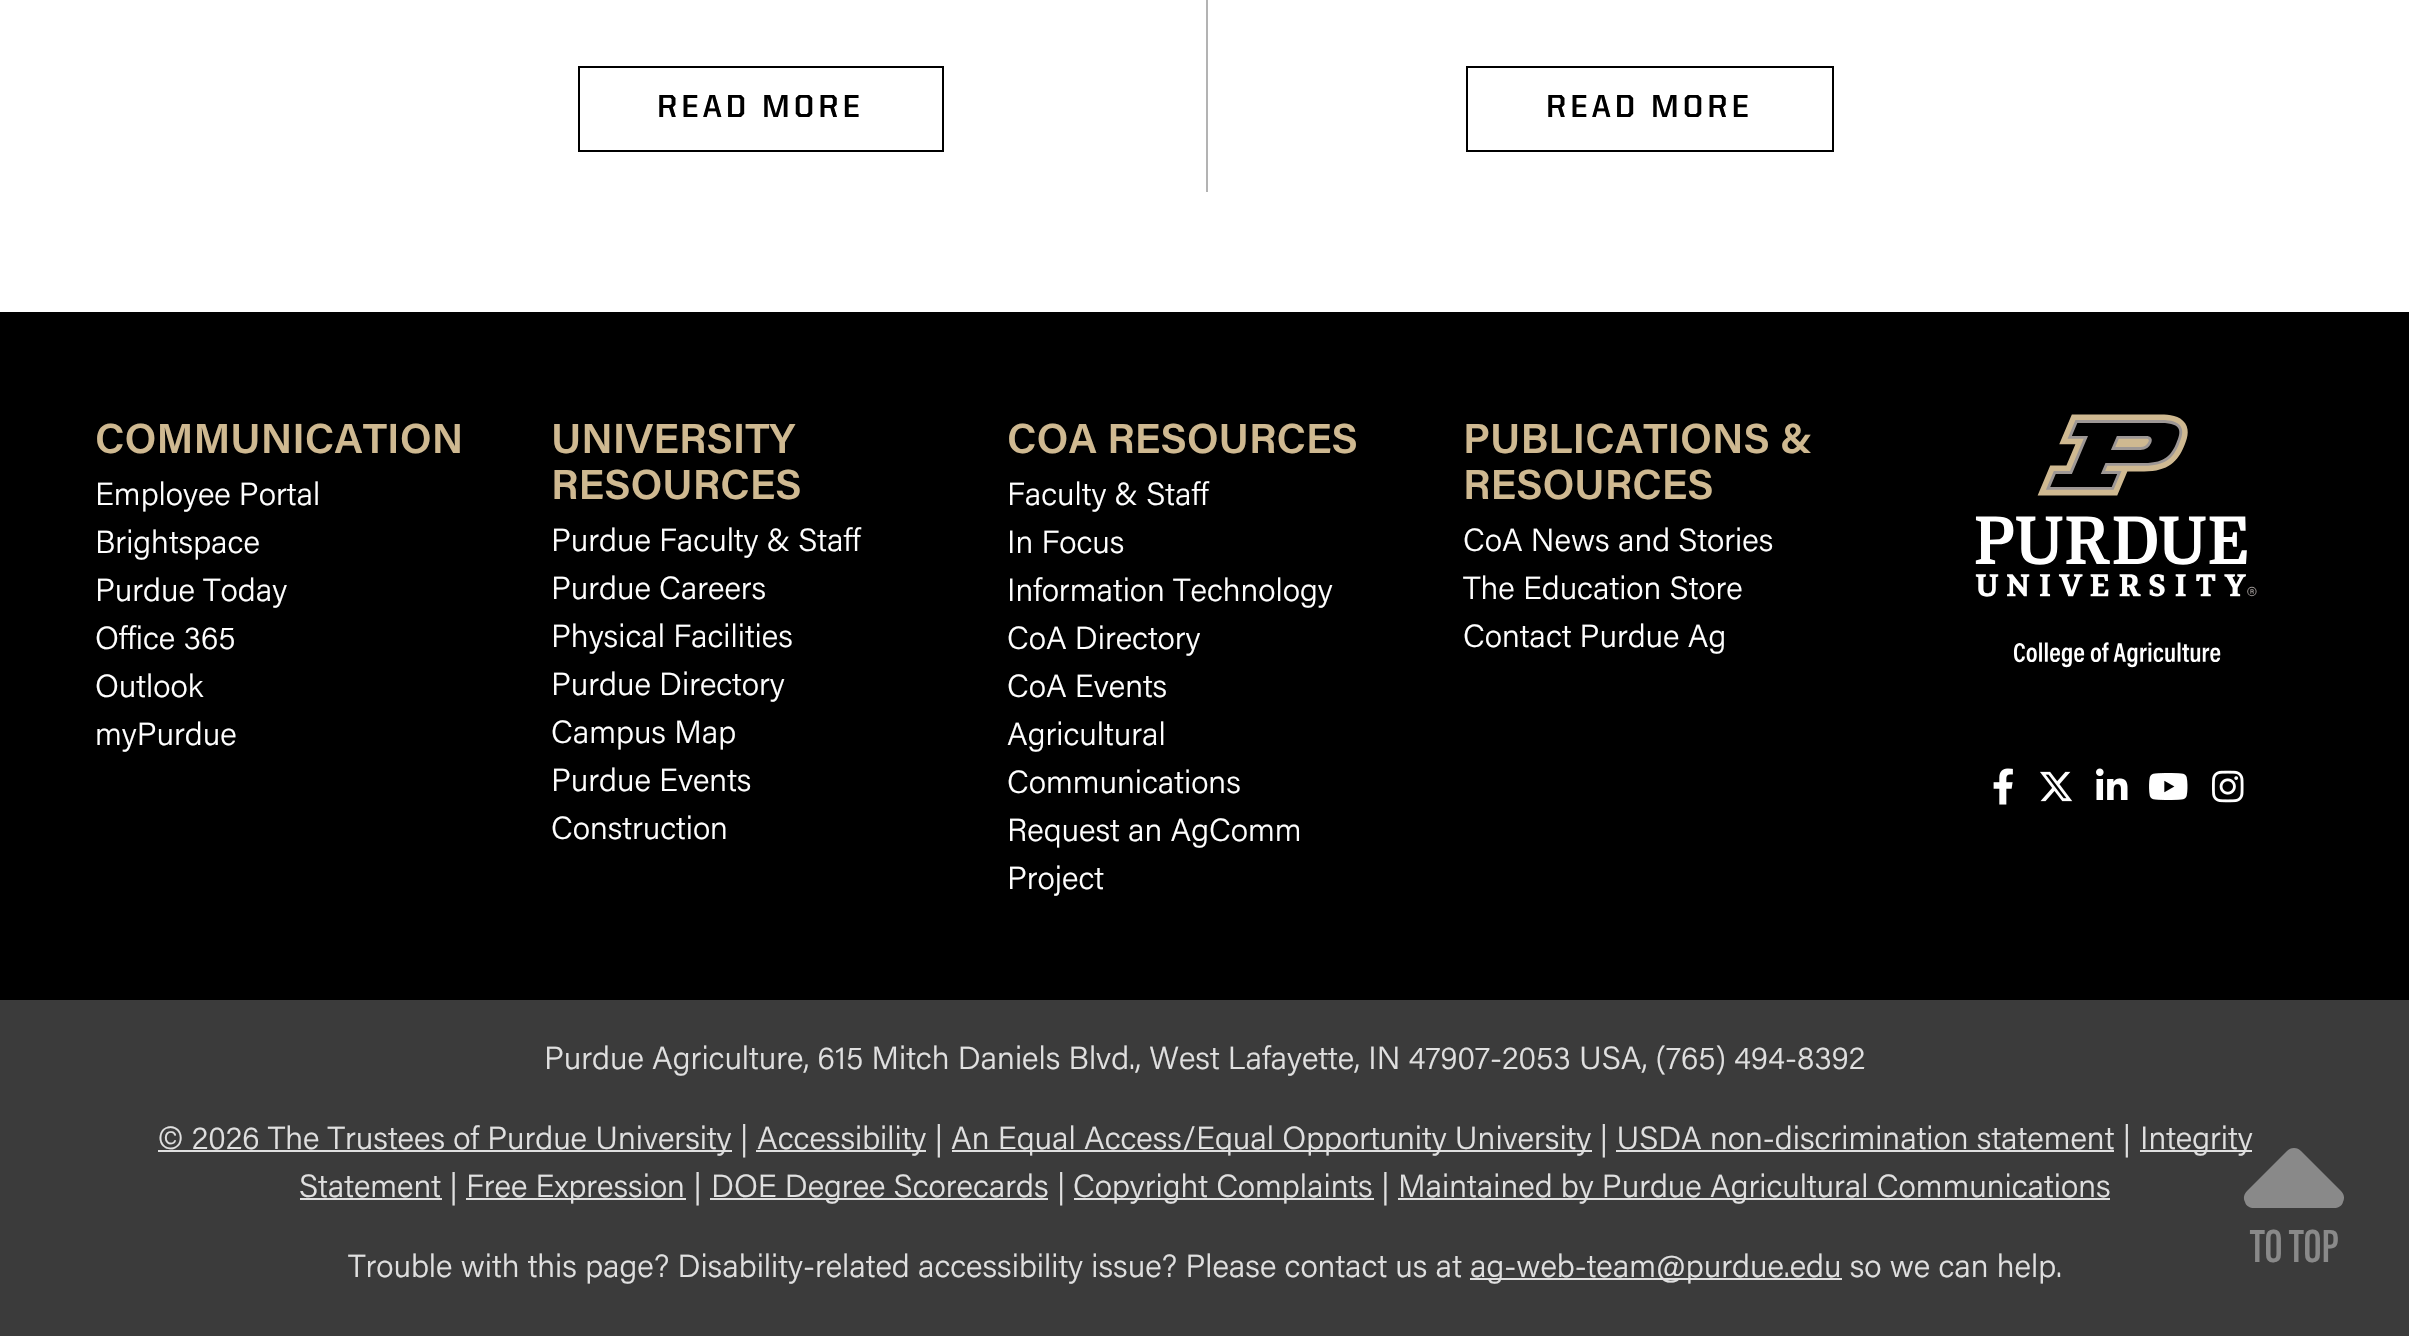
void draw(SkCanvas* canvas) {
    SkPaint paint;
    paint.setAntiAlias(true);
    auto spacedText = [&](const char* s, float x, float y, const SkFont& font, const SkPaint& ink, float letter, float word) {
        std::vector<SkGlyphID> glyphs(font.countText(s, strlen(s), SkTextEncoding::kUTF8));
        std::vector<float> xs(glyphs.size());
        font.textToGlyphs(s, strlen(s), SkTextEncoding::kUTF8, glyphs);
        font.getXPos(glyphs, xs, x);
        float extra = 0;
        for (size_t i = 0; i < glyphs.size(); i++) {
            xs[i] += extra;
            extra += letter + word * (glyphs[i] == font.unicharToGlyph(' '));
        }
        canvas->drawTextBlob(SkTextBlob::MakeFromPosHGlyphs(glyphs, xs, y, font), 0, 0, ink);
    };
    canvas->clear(0xFFFFFFFF);
    paint.setStyle(SkPaint::kStroke_Style);
    paint.setStrokeWidth(2);
    paint.setColor(0xFF000000);
    canvas->drawRect(SkRect::MakeXYWH(579, 67, 364, 84), paint);
    SkFont font1(fontMgr->matchFamilyStyle("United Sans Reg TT", SkFontStyle::Bold()), 32);
    font1.setSubpixel(true);
    paint.setStyle(SkPaint::kFill_Style);
    spacedText("READ MORE", 657, 117, font1, paint, 4, 0);
    paint.setColor(0xFFB3B3B3);
    canvas->drawRect(SkRect::MakeXYWH(1206, 0, 2, 192), paint);
    paint.setStyle(SkPaint::kStroke_Style);
    paint.setColor(0xFF000000);
    canvas->drawRect(SkRect::MakeXYWH(1467, 67, 366, 84), paint);
    paint.setStyle(SkPaint::kFill_Style);
    spacedText("READ MORE", 1546, 117, font1, paint, 4, 0);
    canvas->drawRect(SkRect::MakeXYWH(0, 312, 2409, 688), paint);
    SkFont font2(fontMgr->matchFamilyStyle("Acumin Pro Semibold", SkFontStyle(600, SkFontStyle::kNormal_Width, SkFontStyle::kUpright_Slant)), 42);
    font2.setSubpixel(true);
    paint.setColor(0xFFCFB991);
    canvas->drawString("COMMUNICATION", 95, 453, font2, paint);
    SkFont font3(fontMgr->matchFamilyStyle("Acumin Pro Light", SkFontStyle(300, SkFontStyle::kNormal_Width, SkFontStyle::kUpright_Slant)), 32);
    font3.setSubpixel(true);
    paint.setColor(0xFFFFFFFF);
    canvas->drawString("Employee Portal", 95, 505, font3, paint);
    canvas->drawString("Brightspace", 95, 553, font3, paint);
    canvas->drawString("Purdue Today", 95, 601, font3, paint);
    canvas->drawString("Office 365", 95, 649, font3, paint);
    canvas->drawString("Outlook", 95, 697, font3, paint);
    canvas->drawString("myPurdue", 95, 745, font3, paint);
    paint.setColor(0xFFCFB991);
    canvas->drawString("UNIVERSITY", 551, 453, font2, paint);
    canvas->drawString("RESOURCES", 551, 499, font2, paint);
    paint.setColor(0xFFFFFFFF);
    canvas->drawString("Purdue Faculty & Staff", 551, 551, font3, paint);
    canvas->drawString("Purdue Careers", 551, 599, font3, paint);
    canvas->drawString("Physical Facilities", 551, 647, font3, paint);
    canvas->drawString("Purdue Directory", 551, 695, font3, paint);
    canvas->drawString("Campus Map", 551, 743, font3, paint);
    canvas->drawString("Purdue Events", 551, 791, font3, paint);
    canvas->drawString("Construction", 551, 839, font3, paint);
    paint.setColor(0xFFCFB991);
    canvas->drawString("COA RESOURCES", 1007, 453, font2, paint);
    paint.setColor(0xFFFFFFFF);
    canvas->drawString("Faculty & Staff", 1007, 505, font3, paint);
    canvas->drawString("In Focus", 1007, 553, font3, paint);
    canvas->drawString("Information Technology", 1007, 601, font3, paint);
    canvas->drawString("CoA Directory", 1007, 649, font3, paint);
    canvas->drawString("CoA Events", 1007, 697, font3, paint);
    canvas->drawString("Agricultural", 1007, 745, font3, paint);
    canvas->drawString("Communications", 1007, 793, font3, paint);
    canvas->drawString("Request an AgComm", 1007, 841, font3, paint);
    canvas->drawString("Project", 1007, 889, font3, paint);
    paint.setColor(0xFFCFB991);
    canvas->drawString("PUBLICATIONS &", 1463, 453, font2, paint);
    canvas->drawString("RESOURCES", 1463, 499, font2, paint);
    paint.setColor(0xFFFFFFFF);
    canvas->drawString("CoA News and Stories", 1463, 551, font3, paint);
    canvas->drawString("The Education Store", 1463, 599, font3, paint);
    canvas->drawString("Contact Purdue Ag", 1463, 647, font3, paint);
    canvas->drawImageRect(SkImages::DeferredFromEncodedData(SkData::MakeFromFileName("img1.png")), SkRect::MakeXYWH(1975, 414, 282, 254), SkSamplingOptions());
    canvas->drawImageRect(SkImages::DeferredFromEncodedData(SkData::MakeFromFileName("img2.png")), SkRect::MakeXYWH(1993, 768, 20, 37), SkSamplingOptions());
    canvas->drawImageRect(SkImages::DeferredFromEncodedData(SkData::MakeFromFileName("img3.png")), SkRect::MakeXYWH(2040, 771, 33, 31), SkSamplingOptions());
    canvas->drawImageRect(SkImages::DeferredFromEncodedData(SkData::MakeFromFileName("img4.png")), SkRect::MakeXYWH(2096, 768, 32, 32), SkSamplingOptions());
    canvas->drawImageRect(SkImages::DeferredFromEncodedData(SkData::MakeFromFileName("img5.png")), SkRect::MakeXYWH(2149, 773, 39, 27), SkSamplingOptions());
    canvas->drawImageRect(SkImages::DeferredFromEncodedData(SkData::MakeFromFileName("img6.png")), SkRect::MakeXYWH(2212, 770, 32, 33), SkSamplingOptions());
    paint.setColor(0xFF3B3B3B);
    canvas->drawRect(SkRect::MakeXYWH(0, 1000, 2409, 336), paint);
    paint.setColor(0xFFE0E0E0);
    canvas->drawString("Purdue Agriculture, 615 Mitch Daniels Blvd., West Lafayette, IN 47907-2053 USA, (765) 494-8392", 544, 1069, font3, paint);
    canvas->drawRect(SkRect::MakeXYWH(158, 1150, 574, 2), paint);
    canvas->drawString("© 2026 The Trustees of Purdue University |", 158, 1149, font3, paint);
    canvas->drawRect(SkRect::MakeXYWH(756, 1150, 170, 2), paint);
    canvas->drawString("Accessibility |", 757, 1149, font3, paint);
    canvas->drawRect(SkRect::MakeXYWH(952, 1150, 640, 2), paint);
    canvas->drawString("An Equal Access/Equal Opportunity University | USDA non-discrimination statement |", 951, 1149, font3, paint);
    canvas->drawRect(SkRect::MakeXYWH(2140, 1150, 112, 2), paint);
    canvas->drawString("Integrity", 2140, 1149, font3, paint);
    canvas->drawRect(SkRect::MakeXYWH(1616, 1150, 498, 2), paint);
    canvas->drawRect(SkRect::MakeXYWH(300, 1198, 142, 2), paint);
    canvas->drawString("Statement |", 299, 1197, font3, paint);
    canvas->drawRect(SkRect::MakeXYWH(466, 1198, 220, 2), paint);
    canvas->drawString("Free Expression |", 466, 1197, font3, paint);
    canvas->drawRect(SkRect::MakeXYWH(710, 1198, 338, 2), paint);
    canvas->drawString("DOE Degree Scorecards |", 711, 1197, font3, paint);
    canvas->drawRect(SkRect::MakeXYWH(1074, 1198, 300, 2), paint);
    canvas->drawString("Copyright Complaints |", 1073, 1197, font3, paint);
    canvas->drawRect(SkRect::MakeXYWH(1398, 1198, 712, 2), paint);
    canvas->drawString("Maintained by Purdue Agricultural Communications", 1398, 1197, font3, paint);
    canvas->drawString("Trouble with this page? Disability-related accessibility issue? Please contact us at", 348, 1277, font3, paint);
    canvas->drawRect(SkRect::MakeXYWH(1470, 1278, 372, 2), paint);
    canvas->drawString("ag-web-team@purdue.edu so we can help.", 1470, 1277, font3, paint);
    paint.setColor(0xFF898989);
    canvas->drawPath(SkPathBuilder().moveTo(2301, 1151).cubicTo(2299, 1149, 2297, 1148, 2294, 1148).cubicTo(2291, 1148, 2289, 1149, 2287, 1151).lineTo(2247, 1191).cubicTo(2244, 1194, 2243, 1198, 2245, 1202).cubicTo(2246, 1206, 2250, 1208, 2254, 1208).lineTo(2334, 1208).cubicTo(2338, 1208, 2342, 1206, 2343, 1202).cubicTo(2345, 1198, 2344, 1194, 2341, 1191).close().detach(), paint);
    SkFont font4(fontMgr->matchFamilyStyle("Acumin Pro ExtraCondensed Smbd", SkFontStyle(600, SkFontStyle::kNormal_Width, SkFontStyle::kUpright_Slant)), 48);
    font4.setSubpixel(true);
    canvas->drawString("TO TOP", 2250, 1262, font4, paint);
}
